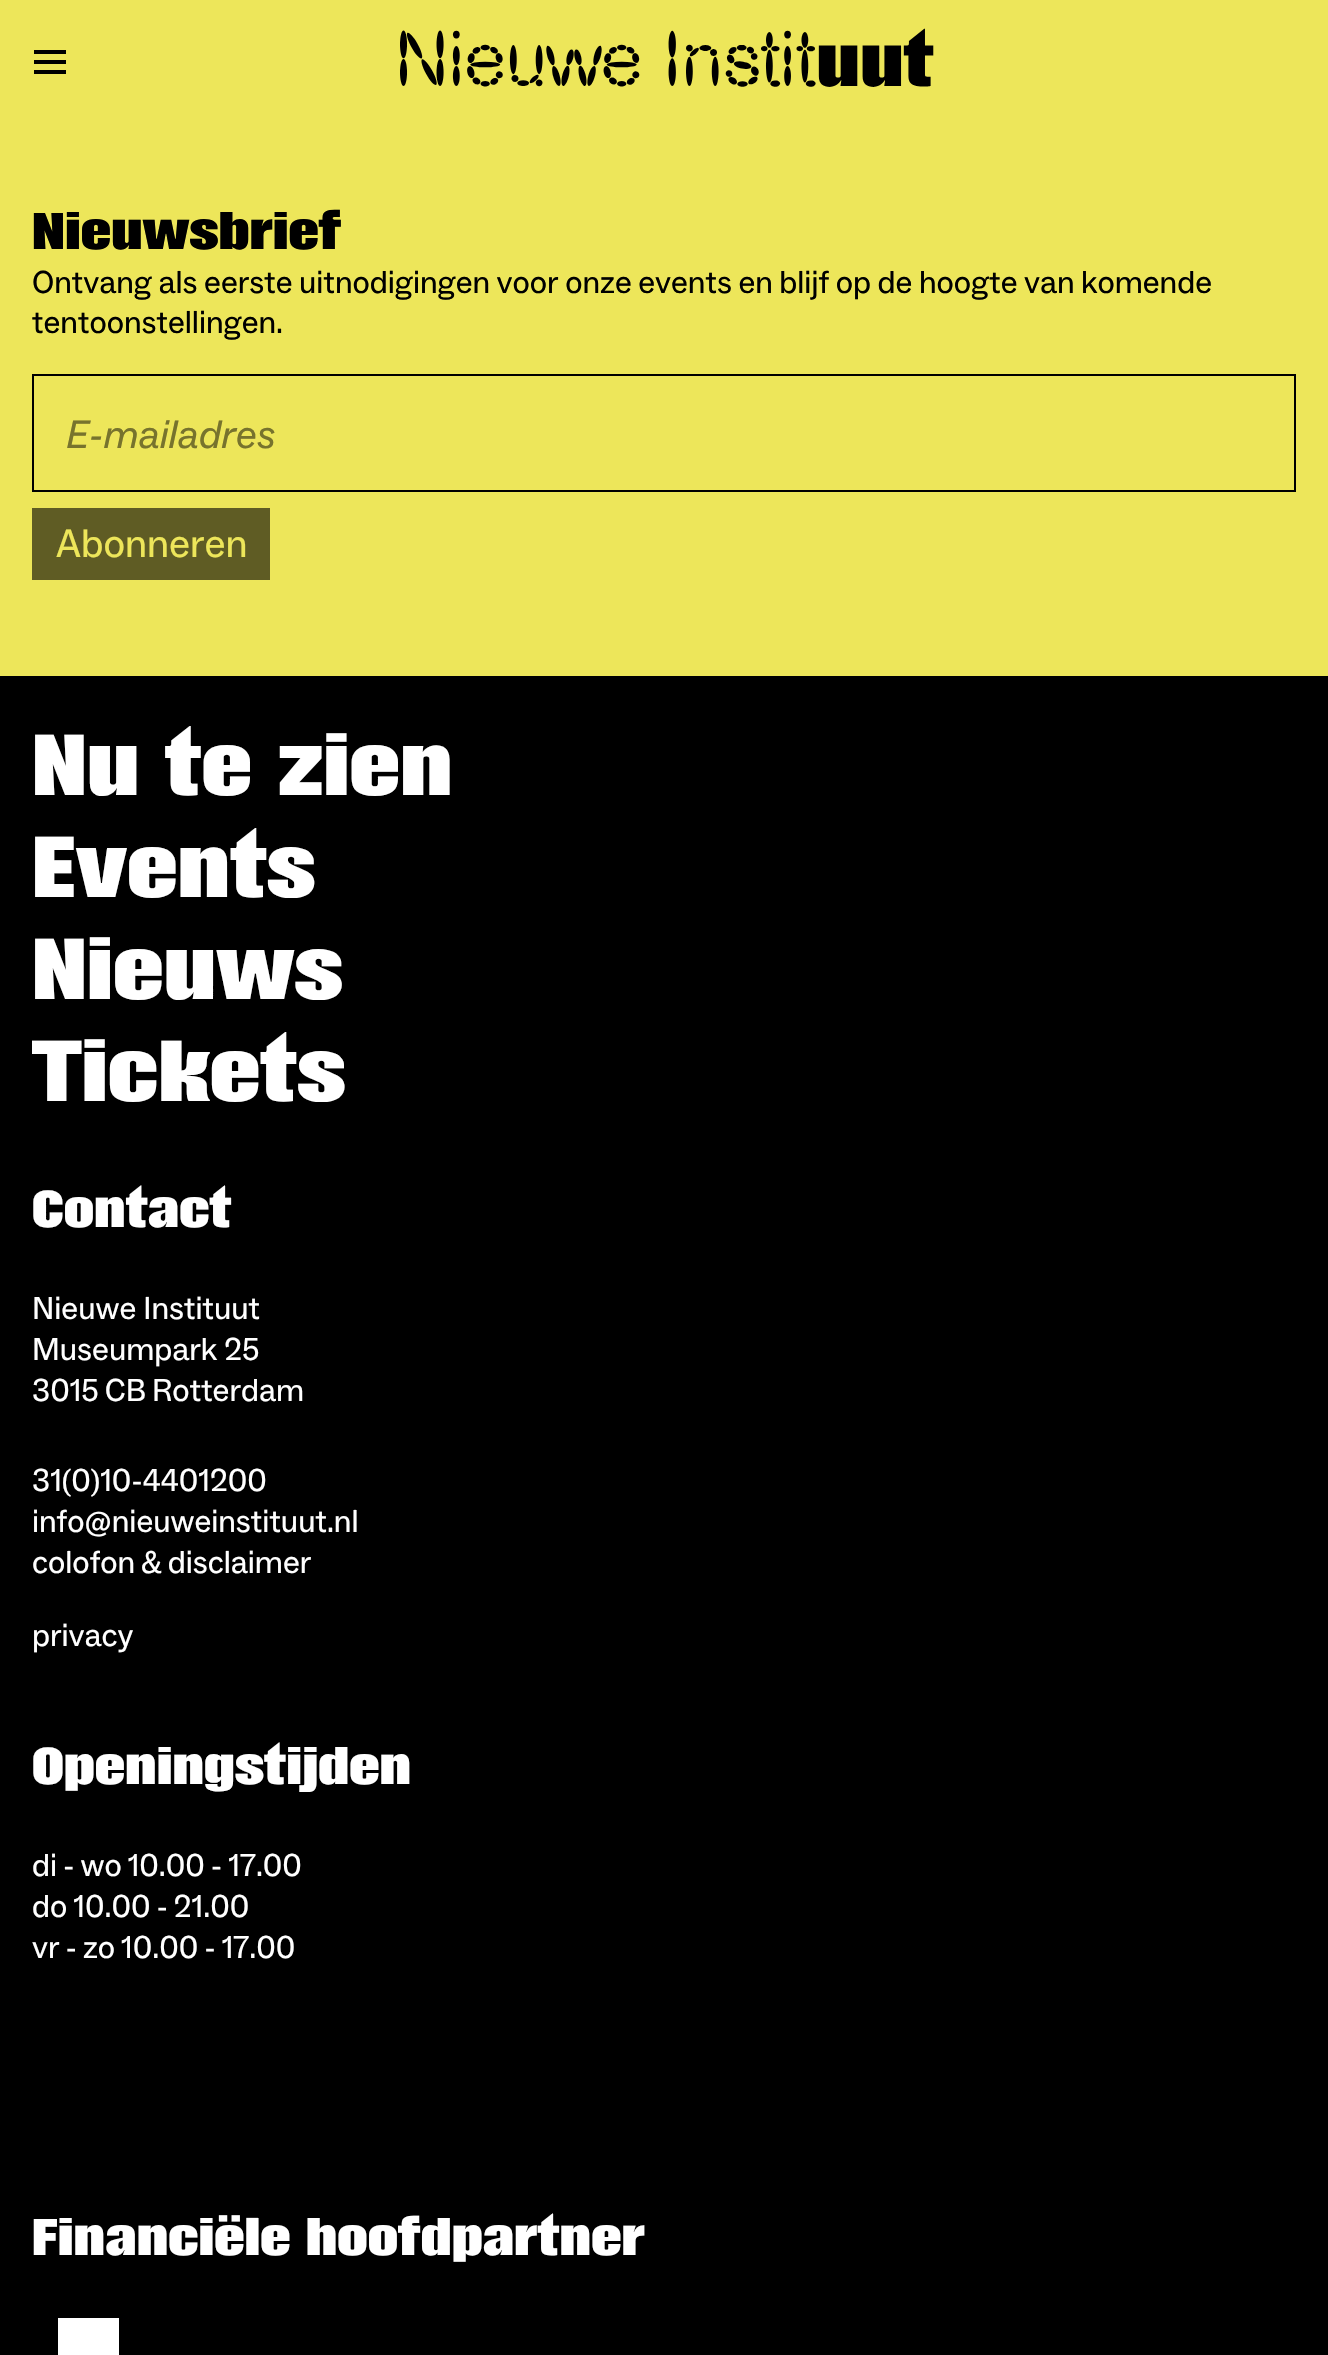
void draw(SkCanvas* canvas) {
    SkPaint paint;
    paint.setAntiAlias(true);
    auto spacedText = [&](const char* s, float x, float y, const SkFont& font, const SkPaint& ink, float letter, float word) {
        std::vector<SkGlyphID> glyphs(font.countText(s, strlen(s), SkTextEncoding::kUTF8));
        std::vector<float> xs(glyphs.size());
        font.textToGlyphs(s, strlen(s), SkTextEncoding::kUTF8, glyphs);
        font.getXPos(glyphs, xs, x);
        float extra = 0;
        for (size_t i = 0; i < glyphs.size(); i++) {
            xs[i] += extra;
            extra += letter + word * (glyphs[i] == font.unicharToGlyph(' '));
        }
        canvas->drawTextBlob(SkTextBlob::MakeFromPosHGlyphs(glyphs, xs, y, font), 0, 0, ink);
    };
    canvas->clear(0xFFEDE65A);
    paint.setColor(0xFF000000);
    canvas->drawRect(SkRect::MakeXYWH(34, 50, 32, 4), paint);
    canvas->drawRect(SkRect::MakeXYWH(34, 60, 32, 4), paint);
    canvas->drawRect(SkRect::MakeXYWH(34, 70, 32, 4), paint);
    canvas->drawImageRect(SkImages::DeferredFromEncodedData(SkData::MakeFromFileName("img1.png")), SkRect::MakeXYWH(400, 28, 534, 59), SkSamplingOptions());
    SkFont font1(fontMgr->matchFamilyStyle("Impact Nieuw", SkFontStyle::Normal()), 48);
    font1.setSubpixel(true);
    canvas->drawString("Nieuwsbrief", 32, 249, font1, paint);
    SkFont font2(fontMgr->matchFamilyStyle("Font", SkFontStyle::Normal()), 32);
    font2.setSubpixel(true);
    spacedText("Ontvang als eerste uitnodigingen voor onze events en blijf op de hoogte van komende", 32, 293, font2, paint, 0, -0.5f);
    canvas->drawString("tentoonstellingen.", 32, 333, font2, paint);
    paint.setStyle(SkPaint::kStroke_Style);
    paint.setStrokeWidth(2);
    canvas->drawRect(SkRect::MakeXYWH(33, 375, 1262, 116), paint);
    SkFont font3(fontMgr->matchFamilyStyle("Font", SkFontStyle::Italic()), 40);
    font3.setSubpixel(true);
    paint.setStyle(SkPaint::kFill_Style);
    paint.setColor(0xFF77732D);
    canvas->drawString("E-mailadres", 66, 448, font3, paint);
    paint.setColor(0xFF5F5C24);
    canvas->drawRect(SkRect::MakeXYWH(32, 508, 238, 72), paint);
    SkFont font4(fontMgr->matchFamilyStyle("Font", SkFontStyle::Normal()), 40);
    font4.setSubpixel(true);
    paint.setColor(0xFFEDE65A);
    canvas->drawString("Abonneren", 56, 557, font4, paint);
    paint.setColor(0xFF000000);
    canvas->drawRect(SkRect::MakeXYWH(0, 676, 1328, 1679), paint);
    SkFont font5(fontMgr->matchFamilyStyle("Impact Nieuw", SkFontStyle::Normal()), 80);
    font5.setSubpixel(true);
    paint.setColor(0xFFFFFFFF);
    canvas->drawString("Nu te zien", 32, 795, font5, paint);
    canvas->drawString("Events", 32, 897, font5, paint);
    canvas->drawString("Nieuws", 32, 999, font5, paint);
    canvas->drawString("Tickets", 32, 1101, font5, paint);
    canvas->drawString("Contact", 32, 1227, font1, paint);
    canvas->drawString("Nieuwe Instituut", 32, 1319, font2, paint);
    canvas->drawString("Museumpark 25", 32, 1360, font2, paint);
    spacedText("3015 CB Rotterdam", 32, 1401, font2, paint, 0, -1);
    canvas->drawString("31(0)10-4401200", 32, 1491, font2, paint);
    canvas->drawString("info@nieuweinstituut.nl", 32, 1532, font2, paint);
    spacedText("colofon & disclaimer", 32, 1573, font2, paint, 0, -1);
    canvas->drawString("privacy", 32, 1646, font2, paint);
    canvas->drawString("Openingstijden", 32, 1784, font1, paint);
    spacedText("di - wo 10.00 - 17.00", 32, 1876, font2, paint, 0, -1);
    spacedText("do 10.00 - 21.00", 32, 1917, font2, paint, 0, -1);
    spacedText("vr - zo 10.00 - 17.00", 32, 1958, font2, paint, 0, -1);
    canvas->drawString("Financiële hoofdpartner", 32, 2255, font1, paint);
    canvas->drawRect(SkRect::MakeXYWH(58, 2318, 61, 37), paint);
}
